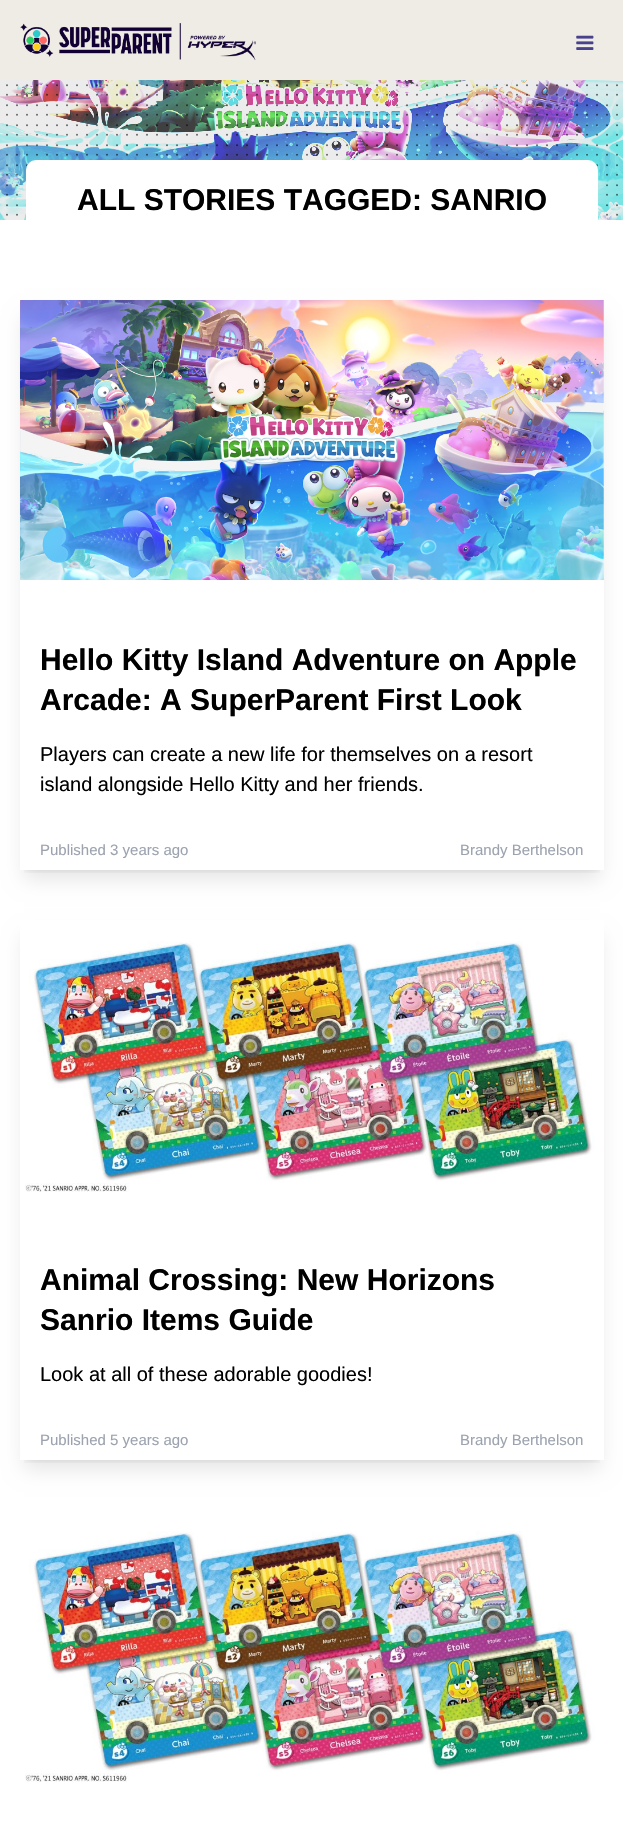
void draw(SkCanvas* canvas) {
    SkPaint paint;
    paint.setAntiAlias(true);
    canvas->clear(0xFFFFFFFF);
    paint.setColor(0xFFEFECE5);
    canvas->drawRect(SkRect::MakeXYWH(0, 0, 623, 80), paint);
    canvas->drawImageRect(SkImages::DeferredFromEncodedData(SkData::MakeFromFileName("img1.png")), SkRect::MakeXYWH(20, 23, 236, 37), SkSamplingOptions());
    canvas->drawImageRect(SkImages::DeferredFromEncodedData(SkData::MakeFromFileName("img2.png")), SkRect::MakeXYWH(576, 35, 18, 15), SkSamplingOptions());
    canvas->drawImageRect(SkImages::DeferredFromEncodedData(SkData::MakeFromFileName("img3.png")), SkRect::MakeXYWH(0, 80, 623, 140), SkSamplingOptions());
    canvas->drawImageRect(SkImages::DeferredFromEncodedData(SkData::MakeFromFileName("img4.png")), SkRect::MakeXYWH(6, 84, 612, 132), SkSamplingOptions());
    paint.setColor(0xFFFFFFFF);
    canvas->drawRoundRect(SkRect::MakeXYWH(26, 160, 572, 90), 10, 10, paint);
    SkFont font1(fontMgr->matchFamilyStyle("Liberation Sans", SkFontStyle::Bold()), 30);
    font1.setSubpixel(true);
    paint.setColor(0xFF000000);
    canvas->drawString("ALL STORIES TAGGED: SANRIO", 77, 210, font1, paint);
    canvas->save();
    canvas->clipRect(SkRect::MakeXYWH(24, 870, 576, 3));
    paint.setColor(0x1A000000);
    paint.setMaskFilter(SkMaskFilter::MakeBlur(kNormal_SkBlurStyle, 4));
    canvas->drawRect(SkRect::MakeXYWH(25, 310, 574, 560), paint);
    paint.setMaskFilter(nullptr);
    canvas->restore();
    canvas->save();
    canvas->clipPath(SkPathBuilder(SkPathFillType::kEvenOdd).moveTo(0, 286).lineTo(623, 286).lineTo(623, 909).lineTo(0, 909).close().moveTo(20, 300).lineTo(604, 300).lineTo(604, 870).lineTo(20, 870).close().detach(), true);
    paint.setMaskFilter(SkMaskFilter::MakeBlur(kNormal_SkBlurStyle, 9.5f));
    canvas->drawRect(SkRect::MakeXYWH(24, 316, 576, 563), paint);
    paint.setMaskFilter(nullptr);
    canvas->restore();
    canvas->drawImageRect(SkImages::DeferredFromEncodedData(SkData::MakeFromFileName("img5.png")), SkRect::MakeXYWH(20, 300, 584, 280), SkSamplingOptions());
    paint.setColor(0xFF000000);
    canvas->drawString("Hello Kitty Island Adventure on Apple", 40, 670, font1, paint);
    canvas->drawString("Arcade: A SuperParent First Look", 40, 710, font1, paint);
    SkFont font2(fontMgr->matchFamilyStyle("Liberation Sans", SkFontStyle::Normal()), 20);
    font2.setSubpixel(true);
    canvas->drawString("Players can create a new life for themselves on a resort", 40, 761, font2, paint);
    canvas->drawString("island alongside Hello Kitty and her friends.", 40, 791, font2, paint);
    SkFont font3(fontMgr->matchFamilyStyle("Liberation Sans", SkFontStyle::Normal()), 15);
    font3.setSubpixel(true);
    paint.setColor(0xFF9CA3AF);
    canvas->drawString("Published 3 years ago", 40, 855, font3, paint);
    canvas->drawString("Brandy Berthelson", 460, 855, font3, paint);
    canvas->save();
    canvas->clipRect(SkRect::MakeXYWH(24, 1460, 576, 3));
    paint.setColor(0x1A000000);
    paint.setMaskFilter(SkMaskFilter::MakeBlur(kNormal_SkBlurStyle, 4));
    canvas->drawRect(SkRect::MakeXYWH(25, 930, 574, 530), paint);
    paint.setMaskFilter(nullptr);
    canvas->restore();
    canvas->save();
    canvas->clipPath(SkPathBuilder(SkPathFillType::kEvenOdd).moveTo(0, 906).lineTo(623, 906).lineTo(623, 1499).lineTo(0, 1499).close().moveTo(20, 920).lineTo(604, 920).lineTo(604, 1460).lineTo(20, 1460).close().detach(), true);
    paint.setMaskFilter(SkMaskFilter::MakeBlur(kNormal_SkBlurStyle, 9.5f));
    canvas->drawRect(SkRect::MakeXYWH(24, 936, 576, 533), paint);
    paint.setMaskFilter(nullptr);
    canvas->restore();
    canvas->drawImageRect(SkImages::DeferredFromEncodedData(SkData::MakeFromFileName("img6.png")), SkRect::MakeXYWH(25, 941, 570, 251), SkSamplingOptions());
    paint.setColor(0xFF000000);
    canvas->drawString("Animal Crossing: New Horizons", 40, 1290, font1, paint);
    canvas->drawString("Sanrio Items Guide", 40, 1330, font1, paint);
    canvas->drawString("Look at all of these adorable goodies!", 40, 1381, font2, paint);
    paint.setColor(0xFF9CA3AF);
    canvas->drawString("Published 5 years ago", 40, 1445, font3, paint);
    canvas->drawString("Brandy Berthelson", 460, 1445, font3, paint);
    canvas->drawImageRect(SkImages::DeferredFromEncodedData(SkData::MakeFromFileName("img6.png")), SkRect::MakeXYWH(25, 1531, 570, 251), SkSamplingOptions());
}
